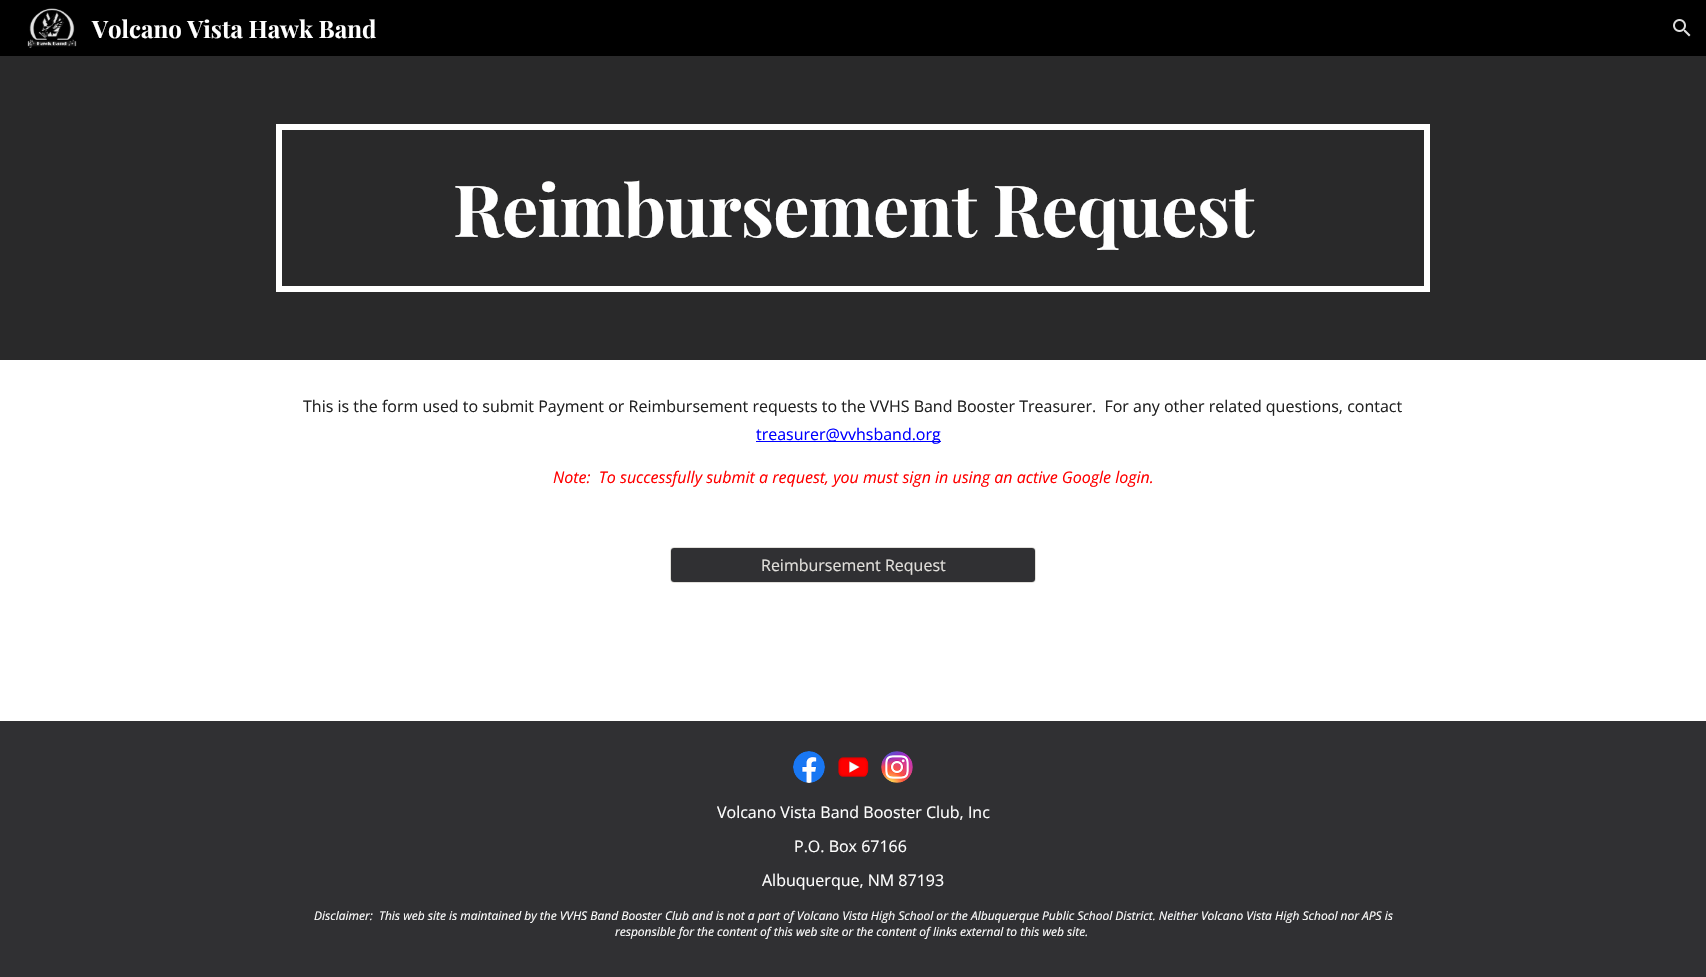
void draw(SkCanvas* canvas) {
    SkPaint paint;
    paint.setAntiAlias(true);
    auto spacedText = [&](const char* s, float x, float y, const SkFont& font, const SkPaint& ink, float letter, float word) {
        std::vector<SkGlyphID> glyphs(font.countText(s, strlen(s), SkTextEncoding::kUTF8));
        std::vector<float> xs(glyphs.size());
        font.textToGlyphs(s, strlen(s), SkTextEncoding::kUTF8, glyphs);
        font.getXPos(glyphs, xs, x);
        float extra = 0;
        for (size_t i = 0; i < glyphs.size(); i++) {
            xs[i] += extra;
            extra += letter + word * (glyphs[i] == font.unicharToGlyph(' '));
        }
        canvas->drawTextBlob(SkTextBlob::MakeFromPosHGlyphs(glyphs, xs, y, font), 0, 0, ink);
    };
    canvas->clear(0xFFFFFFFF);
    paint.setColor(0xFF000000);
    canvas->drawRect(SkRect::MakeXYWH(0, 0, 1706, 56), paint);
    canvas->drawImageRect(SkImages::DeferredFromEncodedData(SkData::MakeFromFileName("img1.png")), SkRect::MakeXYWH(27, 8, 50, 40), SkSamplingOptions());
    SkFont font1(fontMgr->matchFamilyStyle("Playfair Display", SkFontStyle::Bold()), 24);
    font1.setSubpixel(true);
    paint.setColor(0xFFFFFFFF);
    canvas->drawString("Volcano Vista Hawk Band", 92, 38, font1, paint);
    canvas->drawImageRect(SkImages::DeferredFromEncodedData(SkData::MakeFromFileName("img2.png")), SkRect::MakeXYWH(1673, 19, 18, 18), SkSamplingOptions());
    paint.setColor(0xFF29292A);
    canvas->drawRect(SkRect::MakeXYWH(0, 56, 1706, 304), paint);
    paint.setStyle(SkPaint::kStroke_Style);
    paint.setStrokeWidth(6);
    paint.setColor(0xFFFFFFFF);
    canvas->drawRect(SkRect::MakeXYWH(279, 127, 1148, 162), paint);
    SkFont font2(fontMgr->matchFamilyStyle("Playfair Display", SkFontStyle::Bold()), 72);
    font2.setSubpixel(true);
    paint.setStyle(SkPaint::kFill_Style);
    spacedText("Reimbursement Request", 453, 237, font2, paint, -0.8f, 0);
    SkFont font3(fontMgr->matchFamilyStyle("Open Sans", SkFontStyle::Normal()), 16);
    font3.setSubpixel(true);
    paint.setColor(0xFF212121);
    canvas->drawString("This is the form used to submit Payment or Reimbursement requests to the VVHS Band Booster Treasurer.  For any other related questions, contact", 303, 412, font3, paint);
    paint.setColor(0xFF0000FF);
    canvas->drawRect(SkRect::MakeXYWH(756, 441, 185, 1), paint);
    canvas->drawString("treasurer@vvhsband.org", 756, 440, font3, paint);
    SkFont font4(fontMgr->matchFamilyStyle("Open Sans", SkFontStyle::Italic()), 16);
    font4.setSubpixel(true);
    paint.setColor(0xFFFF0000);
    canvas->drawString("Note:  To successfully submit a request, you must sign in using an active Google login.", 553, 483, font4, paint);
    paint.setStyle(SkPaint::kStroke_Style);
    paint.setStrokeWidth(1);
    paint.setColor(0xFFE1DFDB);
    canvas->drawRoundRect(SkRect::MakeXYWH(670.5f, 547.5f, 365, 35), 3.5f, 3.5f, paint);
    paint.setStyle(SkPaint::kFill_Style);
    paint.setColor(0xFF303033);
    canvas->drawRoundRect(SkRect::MakeXYWH(671, 548, 364, 34), 3, 3, paint);
    paint.setColor(0xFFE1DFDB);
    canvas->drawString("Reimbursement Request", 761, 571, font3, paint);
    paint.setColor(0xFF303033);
    canvas->drawRect(SkRect::MakeXYWH(0, 721, 1706, 256), paint);
    canvas->drawImageRect(SkImages::DeferredFromEncodedData(SkData::MakeFromFileName("img3.png")), SkRect::MakeXYWH(793, 751, 32, 32), SkSamplingOptions());
    canvas->drawImageRect(SkImages::DeferredFromEncodedData(SkData::MakeFromFileName("img4.png")), SkRect::MakeXYWH(838, 757, 31, 20), SkSamplingOptions());
    canvas->drawImageRect(SkImages::DeferredFromEncodedData(SkData::MakeFromFileName("img5.png")), SkRect::MakeXYWH(881, 751, 32, 32), SkSamplingOptions());
    paint.setColor(0xFFFFFFFF);
    canvas->drawString("Volcano Vista Band Booster Club, Inc", 717, 818, font3, paint);
    canvas->drawString("P.O. Box 67166", 794, 852, font3, paint);
    canvas->drawString("Albuquerque, NM 87193", 762, 886, font3, paint);
    SkFont font5(fontMgr->matchFamilyStyle("Open Sans", SkFontStyle::Italic()), 12);
    font5.setSubpixel(true);
    canvas->drawString("Disclaimer:  This web site is maintained by the VVHS Band Booster Club and is not a part of Volcano Vista High School or the Albuquerque Public School District. Neither Volcano Vista High School nor APS is", 314, 920, font5, paint);
    canvas->drawString("responsible for the content of this web site or the content of links external to this web site.", 615, 936, font5, paint);
}
